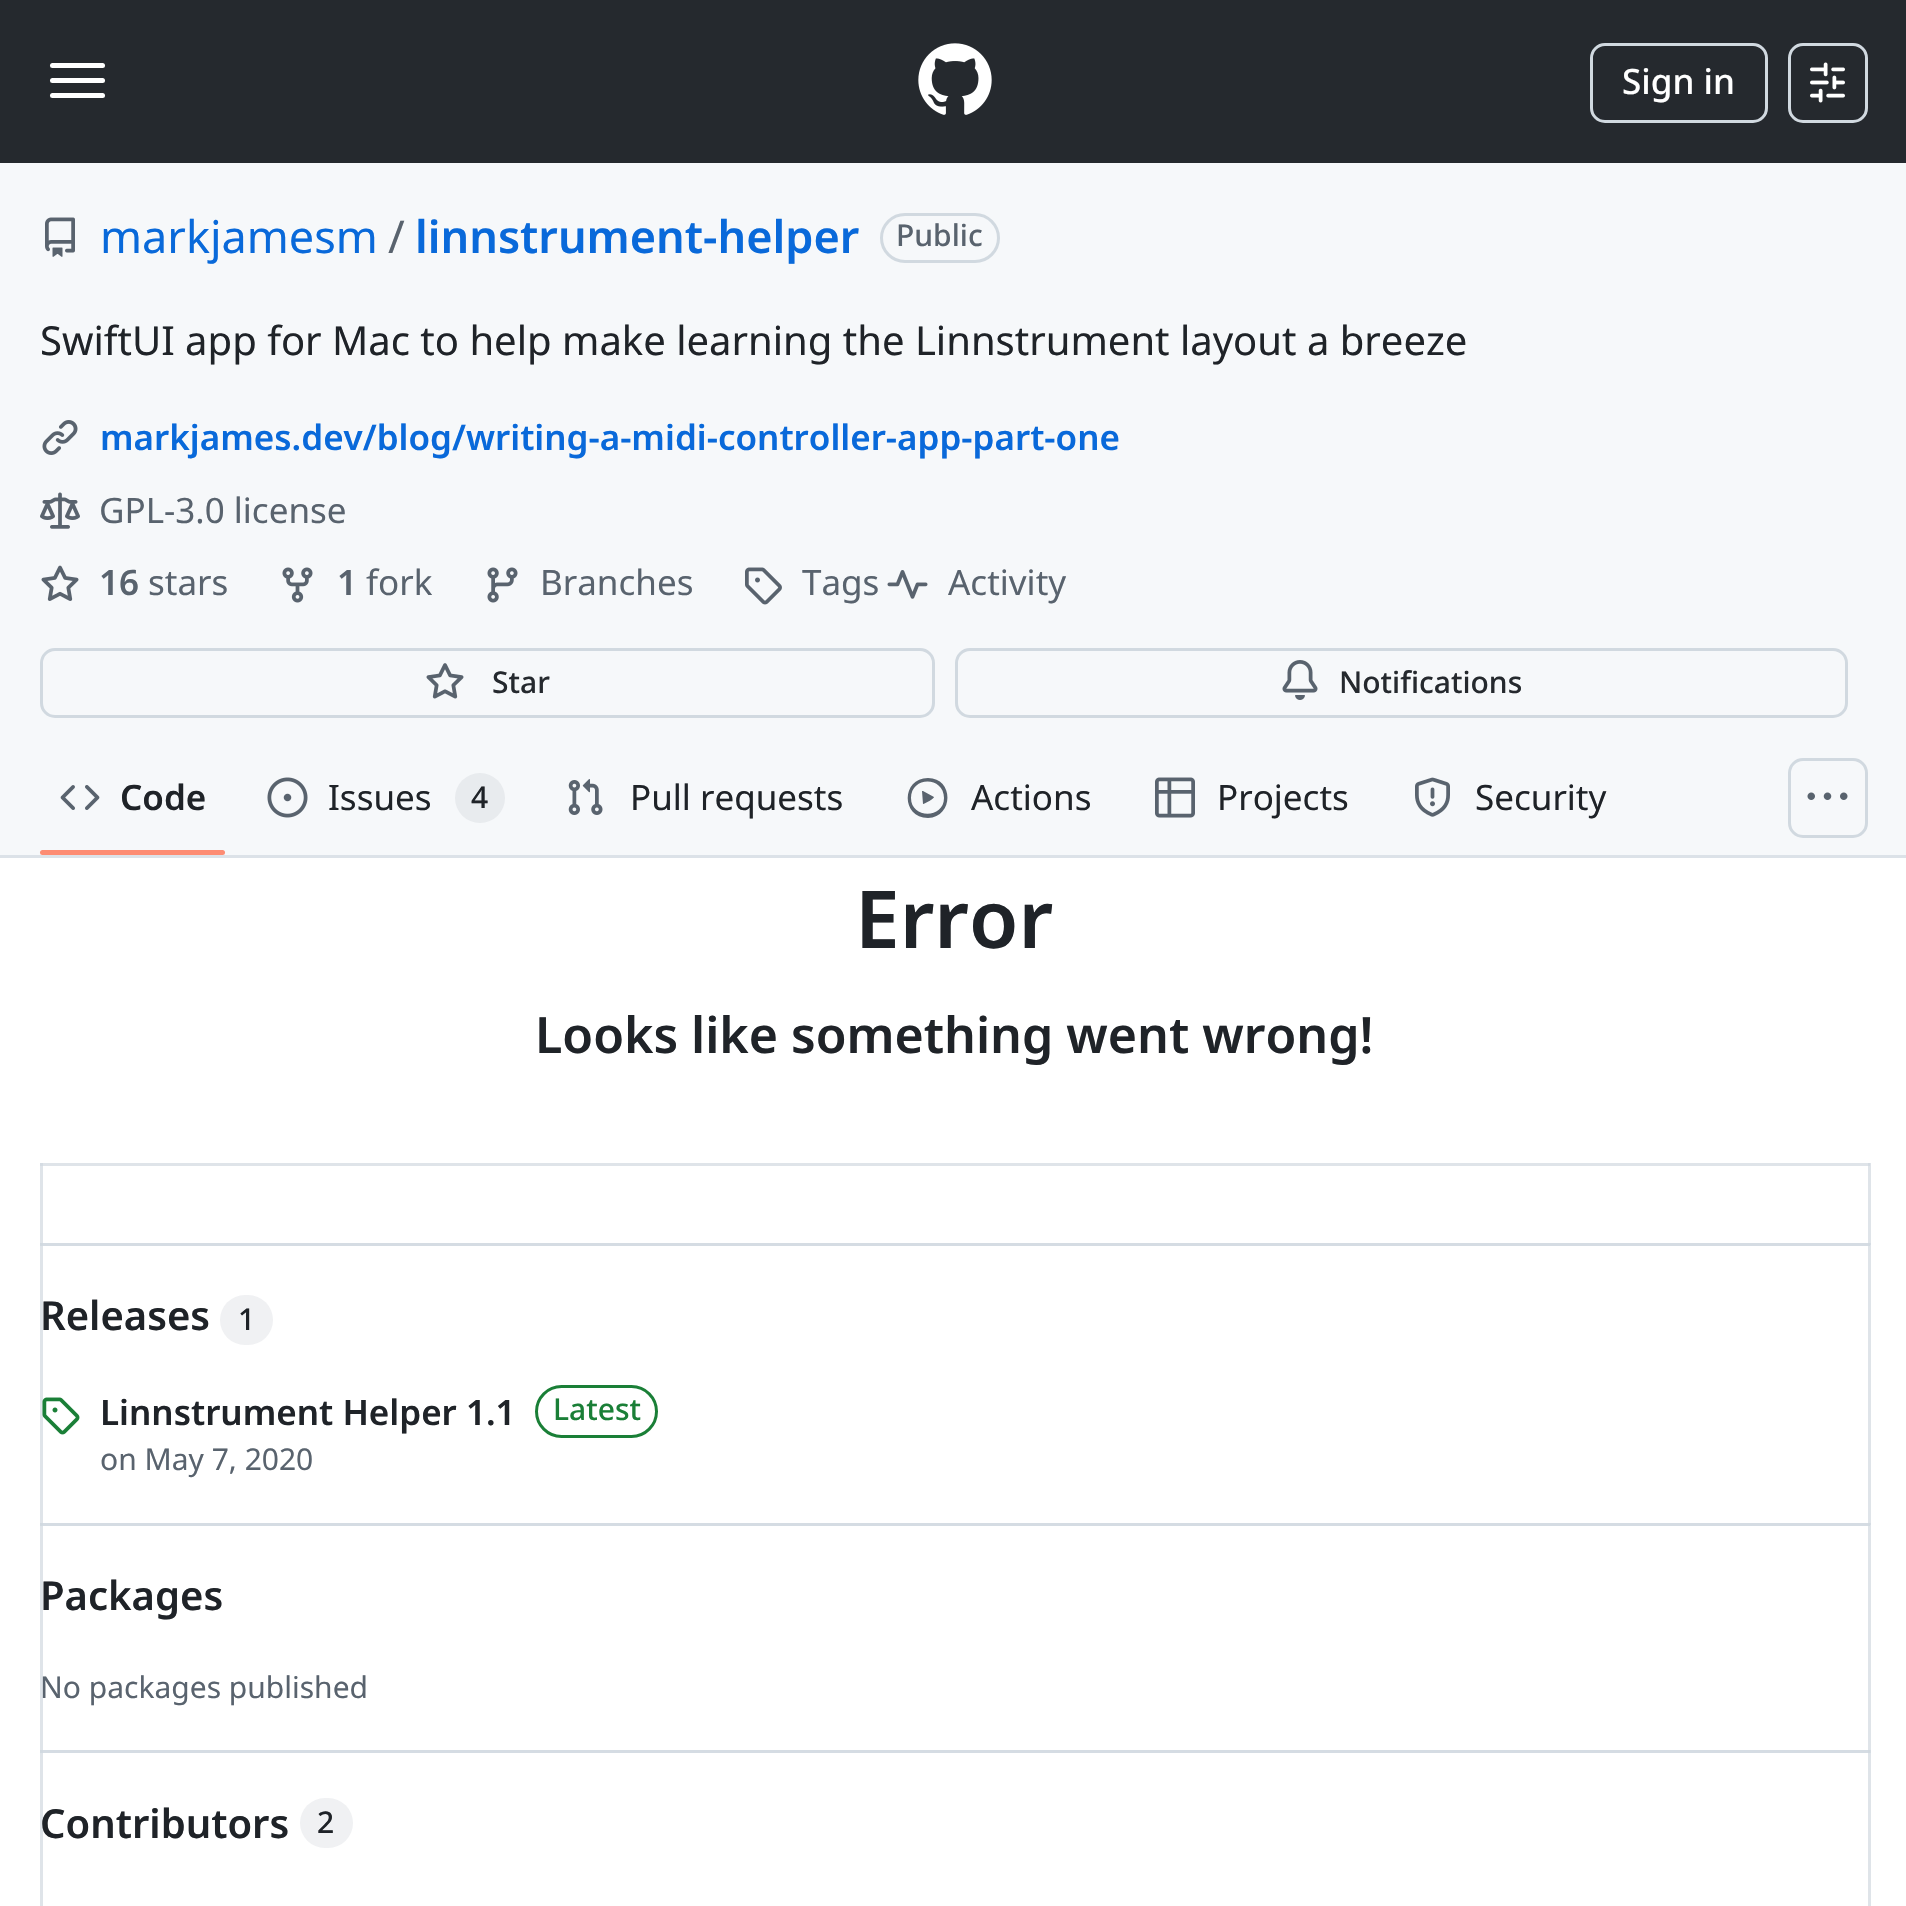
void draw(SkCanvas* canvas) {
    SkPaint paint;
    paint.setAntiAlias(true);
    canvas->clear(0xFFFFFFFF);
    paint.setColor(0xFFDFE4E9);
    canvas->drawRect(SkRect::MakeXYWH(40, 1163, 3, 743), paint);
    canvas->drawRect(SkRect::MakeXYWH(1868, 1163, 3, 743), paint);
    paint.setColor(0xFFD5DCE3);
    canvas->drawRect(SkRect::MakeXYWH(1868, 1243, 3, 2), paint);
    canvas->drawRect(SkRect::MakeXYWH(1868, 1523, 3, 2), paint);
    canvas->drawRect(SkRect::MakeXYWH(40, 1750, 1831, 3), paint);
    paint.setColor(0xFF25292E);
    canvas->drawRect(SkRect::MakeXYWH(0, 0, 1906, 163), paint);
    paint.setColor(0xFFFFFFFF);
    canvas->drawRoundRect(SkRect::MakeXYWH(50, 63, 55, 5), 2.5f, 2.5f, paint);
    canvas->drawRoundRect(SkRect::MakeXYWH(50, 78, 55, 5), 2.5f, 2.5f, paint);
    canvas->drawRoundRect(SkRect::MakeXYWH(50, 93, 55, 5), 2.5f, 2.5f, paint);
    canvas->drawImageRect(SkImages::DeferredFromEncodedData(SkData::MakeFromFileName("img1.png")), SkRect::MakeXYWH(918, 43, 74, 72), SkSamplingOptions());
    paint.setStyle(SkPaint::kStroke_Style);
    paint.setStrokeWidth(3);
    paint.setColor(0xFFD1D9E0);
    canvas->drawRoundRect(SkRect::MakeXYWH(1591.5f, 44.5f, 175, 77), 13.5f, 13.5f, paint);
    SkFont font1(fontMgr->matchFamilyStyle("Noto Sans", SkFontStyle(500, SkFontStyle::kNormal_Width, SkFontStyle::kUpright_Slant)), 35);
    font1.setSubpixel(true);
    paint.setStyle(SkPaint::kFill_Style);
    paint.setColor(0xFFFFFFFF);
    canvas->drawString("Sign in", 1622, 94, font1, paint);
    paint.setStyle(SkPaint::kStroke_Style);
    paint.setColor(0xFFD1D9E0);
    canvas->drawRoundRect(SkRect::MakeXYWH(1789.5f, 44.5f, 77, 77), 13.5f, 13.5f, paint);
    canvas->drawImageRect(SkImages::DeferredFromEncodedData(SkData::MakeFromFileName("img2.png")), SkRect::MakeXYWH(1810, 62, 35, 41), SkSamplingOptions());
    paint.setStyle(SkPaint::kFill_Style);
    paint.setColor(0xFFF6F8FA);
    canvas->drawRect(SkRect::MakeXYWH(0, 163, 1906, 692), paint);
    canvas->drawImageRect(SkImages::DeferredFromEncodedData(SkData::MakeFromFileName("img3.png")), SkRect::MakeXYWH(45, 217, 30, 40), SkSamplingOptions());
    SkFont font2(fontMgr->matchFamilyStyle("Noto Sans", SkFontStyle::Normal()), 45);
    font2.setSubpixel(true);
    paint.setColor(0xFF0969DA);
    canvas->drawString("markjamesm", 100, 253, font2, paint);
    paint.setColor(0xFF59636E);
    canvas->drawString("/", 388, 253, font2, paint);
    SkFont font3(fontMgr->matchFamilyStyle("Noto Sans", SkFontStyle(600, SkFontStyle::kNormal_Width, SkFontStyle::kUpright_Slant)), 45);
    font3.setSubpixel(true);
    paint.setColor(0xFF0969DA);
    canvas->drawString("linnstrument-helper", 415, 253, font3, paint);
    paint.setStyle(SkPaint::kStroke_Style);
    paint.setColor(0xFFD1D9E0);
    canvas->drawRoundRect(SkRect::MakeXYWH(881.5f, 214.5f, 117, 47), 23.5f, 23.5f, paint);
    SkFont font4(fontMgr->matchFamilyStyle("Noto Sans", SkFontStyle(500, SkFontStyle::kNormal_Width, SkFontStyle::kUpright_Slant)), 30);
    font4.setSubpixel(true);
    paint.setStyle(SkPaint::kFill_Style);
    paint.setColor(0xFF59636E);
    canvas->drawString("Public", 896, 246, font4, paint);
    SkFont font5(fontMgr->matchFamilyStyle("Noto Sans", SkFontStyle::Normal()), 40);
    font5.setSubpixel(true);
    paint.setColor(0xFF1F2328);
    canvas->drawString("SwiftUI app for Mac to help make learning the Linnstrument layout a breeze", 40, 355, font5, paint);
    canvas->drawImageRect(SkImages::DeferredFromEncodedData(SkData::MakeFromFileName("img4.png")), SkRect::MakeXYWH(42, 420, 36, 35), SkSamplingOptions());
    SkFont font6(fontMgr->matchFamilyStyle("Noto Sans", SkFontStyle(600, SkFontStyle::kNormal_Width, SkFontStyle::kUpright_Slant)), 35);
    font6.setSubpixel(true);
    paint.setColor(0xFF0969DA);
    canvas->drawString("markjames.dev/blog/writing-a-midi-controller-app-part-one", 100, 450, font6, paint);
    canvas->drawImageRect(SkImages::DeferredFromEncodedData(SkData::MakeFromFileName("img5.png")), SkRect::MakeXYWH(40, 492, 40, 37), SkSamplingOptions());
    SkFont font7(fontMgr->matchFamilyStyle("Noto Sans", SkFontStyle::Normal()), 35);
    font7.setSubpixel(true);
    paint.setColor(0xFF59636E);
    canvas->drawString("GPL-3.0 license", 99, 523, font7, paint);
    canvas->drawImageRect(SkImages::DeferredFromEncodedData(SkData::MakeFromFileName("img6.png")), SkRect::MakeXYWH(41, 565, 38, 36), SkSamplingOptions());
    canvas->drawString("16", 99, 595, font6, paint);
    canvas->drawString("stars", 148, 595, font7, paint);
    canvas->drawImageRect(SkImages::DeferredFromEncodedData(SkData::MakeFromFileName("img7.png")), SkRect::MakeXYWH(282, 567, 31, 36), SkSamplingOptions());
    canvas->drawString("1", 337, 595, font6, paint);
    canvas->drawString("fork", 366, 595, font7, paint);
    canvas->drawImageRect(SkImages::DeferredFromEncodedData(SkData::MakeFromFileName("img8.png")), SkRect::MakeXYWH(487, 567, 31, 36), SkSamplingOptions());
    canvas->drawString("Branches", 540, 595, font7, paint);
    canvas->drawImageRect(SkImages::DeferredFromEncodedData(SkData::MakeFromFileName("img9.png")), SkRect::MakeXYWH(745, 567, 37, 38), SkSamplingOptions());
    canvas->drawString("Tags", 802, 595, font7, paint);
    canvas->drawImageRect(SkImages::DeferredFromEncodedData(SkData::MakeFromFileName("img10.png")), SkRect::MakeXYWH(887, 570, 41, 29), SkSamplingOptions());
    canvas->drawString("Activity", 948, 595, font7, paint);
    paint.setStyle(SkPaint::kStroke_Style);
    paint.setColor(0xFFD1D9E0);
    canvas->drawRoundRect(SkRect::MakeXYWH(41.5f, 649.5f, 892, 67), 13.5f, 13.5f, paint);
    canvas->drawImageRect(SkImages::DeferredFromEncodedData(SkData::MakeFromFileName("img11.png")), SkRect::MakeXYWH(426, 663, 38, 36), SkSamplingOptions());
    paint.setStyle(SkPaint::kFill_Style);
    paint.setColor(0xFF25292E);
    canvas->drawString("Star", 492, 693, font4, paint);
    paint.setStyle(SkPaint::kStroke_Style);
    paint.setColor(0xFFD1D9E0);
    canvas->drawRoundRect(SkRect::MakeXYWH(956.5f, 649.5f, 890, 67), 13.5f, 13.5f, paint);
    canvas->drawImageRect(SkImages::DeferredFromEncodedData(SkData::MakeFromFileName("img12.png")), SkRect::MakeXYWH(1282, 660, 36, 40), SkSamplingOptions());
    paint.setStyle(SkPaint::kFill_Style);
    paint.setColor(0xFF25292E);
    canvas->drawString("Notifications", 1339, 693, font4, paint);
    paint.setColor(0xFFDCE2E8);
    canvas->drawRect(SkRect::MakeXYWH(0, 855, 1906, 3), paint);
    canvas->drawImageRect(SkImages::DeferredFromEncodedData(SkData::MakeFromFileName("img13.png")), SkRect::MakeXYWH(60, 785, 40, 25), SkSamplingOptions());
    paint.setColor(0xFF1F2328);
    canvas->drawString("Code", 120, 810, font6, paint);
    paint.setColor(0xFFFD8C73);
    canvas->drawRoundRect(SkRect::MakeXYWH(40, 850, 185, 5), 2.5f, 2.5f, paint);
    canvas->drawImageRect(SkImages::DeferredFromEncodedData(SkData::MakeFromFileName("img14.png")), SkRect::MakeXYWH(267, 777, 41, 41), SkSamplingOptions());
    paint.setColor(0xFF1F2328);
    canvas->drawString("Issues", 328, 810, font7, paint);
    paint.setColor(0xFFE8EBEE);
    canvas->drawCircle(480, 798, 25, paint);
    paint.setColor(0xFF1F2328);
    canvas->drawString("4", 471, 808, font4, paint);
    canvas->drawImageRect(SkImages::DeferredFromEncodedData(SkData::MakeFromFileName("img15.png")), SkRect::MakeXYWH(568, 779, 35, 36), SkSamplingOptions());
    canvas->drawString("Pull requests", 630, 810, font7, paint);
    paint.setColor(0xFF59636E);
    canvas->drawPath(SkPathBuilder().moveTo(928, 778).cubicTo(954, 778, 954, 817, 928, 818).cubicTo(901, 818, 901, 778, 928, 778).close().moveTo(911, 798).cubicTo(911, 819, 944, 819, 944, 798).cubicTo(944, 776, 911, 776, 911, 798).close().moveTo(923, 791).lineTo(934, 797).cubicTo(935, 798, 923, 805, 923, 804).lineTo(922, 791).close().detach(), paint);
    paint.setColor(0xFF1F2328);
    canvas->drawString("Actions", 971, 810, font7, paint);
    canvas->drawImageRect(SkImages::DeferredFromEncodedData(SkData::MakeFromFileName("img16.png")), SkRect::MakeXYWH(1155, 777, 40, 41), SkSamplingOptions());
    canvas->drawString("Projects", 1217, 810, font7, paint);
    canvas->drawImageRect(SkImages::DeferredFromEncodedData(SkData::MakeFromFileName("img17.png")), SkRect::MakeXYWH(1415, 777, 35, 40), SkSamplingOptions());
    canvas->drawString("Security", 1475, 810, font7, paint);
    paint.setStyle(SkPaint::kStroke_Style);
    paint.setColor(0xFFD1D9E0);
    canvas->drawRoundRect(SkRect::MakeXYWH(1789.5f, 759.5f, 77, 77), 13.5f, 13.5f, paint);
    canvas->drawImageRect(SkImages::DeferredFromEncodedData(SkData::MakeFromFileName("img18.png")), SkRect::MakeXYWH(1807, 792, 41, 8), SkSamplingOptions());
    SkFont font8(fontMgr->matchFamilyStyle("Noto Sans", SkFontStyle(600, SkFontStyle::kNormal_Width, SkFontStyle::kUpright_Slant)), 80);
    font8.setSubpixel(true);
    paint.setStyle(SkPaint::kFill_Style);
    paint.setColor(0xFF1F2328);
    canvas->drawString("Error", 855, 948, font8, paint);
    SkFont font9(fontMgr->matchFamilyStyle("Noto Sans", SkFontStyle(600, SkFontStyle::kNormal_Width, SkFontStyle::kUpright_Slant)), 50);
    font9.setSubpixel(true);
    canvas->drawString("Looks like something went wrong!", 535, 1053, font9, paint);
    paint.setColor(0xFFDFE4E9);
    canvas->drawRect(SkRect::MakeXYWH(40, 1163, 1830, 3), paint);
    paint.setColor(0xFFD5DCE3);
    canvas->drawRect(SkRect::MakeXYWH(40, 1163, 3, 3), paint);
    canvas->drawRect(SkRect::MakeXYWH(1868, 1163, 2, 3), paint);
    canvas->drawRect(SkRect::MakeXYWH(40, 1243, 1830, 3), paint);
    paint.setColor(0xFFD2DAE1);
    canvas->drawRect(SkRect::MakeXYWH(40, 1245, 3, 1), paint);
    paint.setColor(0xFFD1D9E0);
    canvas->drawRect(SkRect::MakeXYWH(40, 1243, 3, 2), paint);
    paint.setColor(0xFFD2DAE1);
    canvas->drawRect(SkRect::MakeXYWH(1868, 1243, 2, 3), paint);
    SkFont font10(fontMgr->matchFamilyStyle("Noto Sans", SkFontStyle(600, SkFontStyle::kNormal_Width, SkFontStyle::kUpright_Slant)), 40);
    font10.setSubpixel(true);
    paint.setColor(0xFF1F2328);
    canvas->drawString("Releases", 40, 1330, font10, paint);
    paint.setColor(0xFFF0F1F3);
    canvas->drawRoundRect(SkRect::MakeXYWH(220, 1295, 53, 50), 25, 25, paint);
    paint.setColor(0xFF1F2328);
    canvas->drawString("1", 238, 1330, font4, paint);
    canvas->drawImageRect(SkImages::DeferredFromEncodedData(SkData::MakeFromFileName("img19.png")), SkRect::MakeXYWH(42, 1397, 38, 38), SkSamplingOptions());
    canvas->drawString("Linnstrument Helper 1.1", 100, 1425, font6, paint);
    paint.setStyle(SkPaint::kStroke_Style);
    paint.setColor(0xFF1A7F37);
    canvas->drawRoundRect(SkRect::MakeXYWH(536.5f, 1386.5f, 120, 50), 25, 25, paint);
    paint.setStyle(SkPaint::kFill_Style);
    canvas->drawString("Latest", 553, 1420, font4, paint);
    SkFont font11(fontMgr->matchFamilyStyle("Noto Sans", SkFontStyle::Normal()), 30);
    font11.setSubpixel(true);
    paint.setColor(0xFF59636E);
    canvas->drawString("on May 7, 2020", 100, 1470, font11, paint);
    paint.setColor(0xFFD5DCE3);
    canvas->drawRect(SkRect::MakeXYWH(40, 1523, 1830, 3), paint);
    paint.setColor(0xFFD2DAE1);
    canvas->drawRect(SkRect::MakeXYWH(40, 1525, 3, 1), paint);
    paint.setColor(0xFFD1D9E0);
    canvas->drawRect(SkRect::MakeXYWH(40, 1523, 3, 2), paint);
    paint.setColor(0xFFD2DAE1);
    canvas->drawRect(SkRect::MakeXYWH(1868, 1523, 2, 3), paint);
    paint.setColor(0xFF1F2328);
    canvas->drawString("Packages", 40, 1610, font10, paint);
    paint.setColor(0xFF59636E);
    canvas->drawString("No packages published", 40, 1698, font11, paint);
    paint.setColor(0xFFD1D9E0);
    canvas->drawRect(SkRect::MakeXYWH(40, 1750, 3, 3), paint);
    canvas->drawRect(SkRect::MakeXYWH(1868, 1750, 2, 3), paint);
    paint.setColor(0xFF1F2328);
    canvas->drawString("Contributors", 40, 1838, font10, paint);
    paint.setColor(0xFFF0F1F3);
    canvas->drawRoundRect(SkRect::MakeXYWH(300, 1798, 53, 50), 25, 25, paint);
    paint.setColor(0xFF1F2328);
    canvas->drawString("2", 317, 1833, font4, paint);
}
